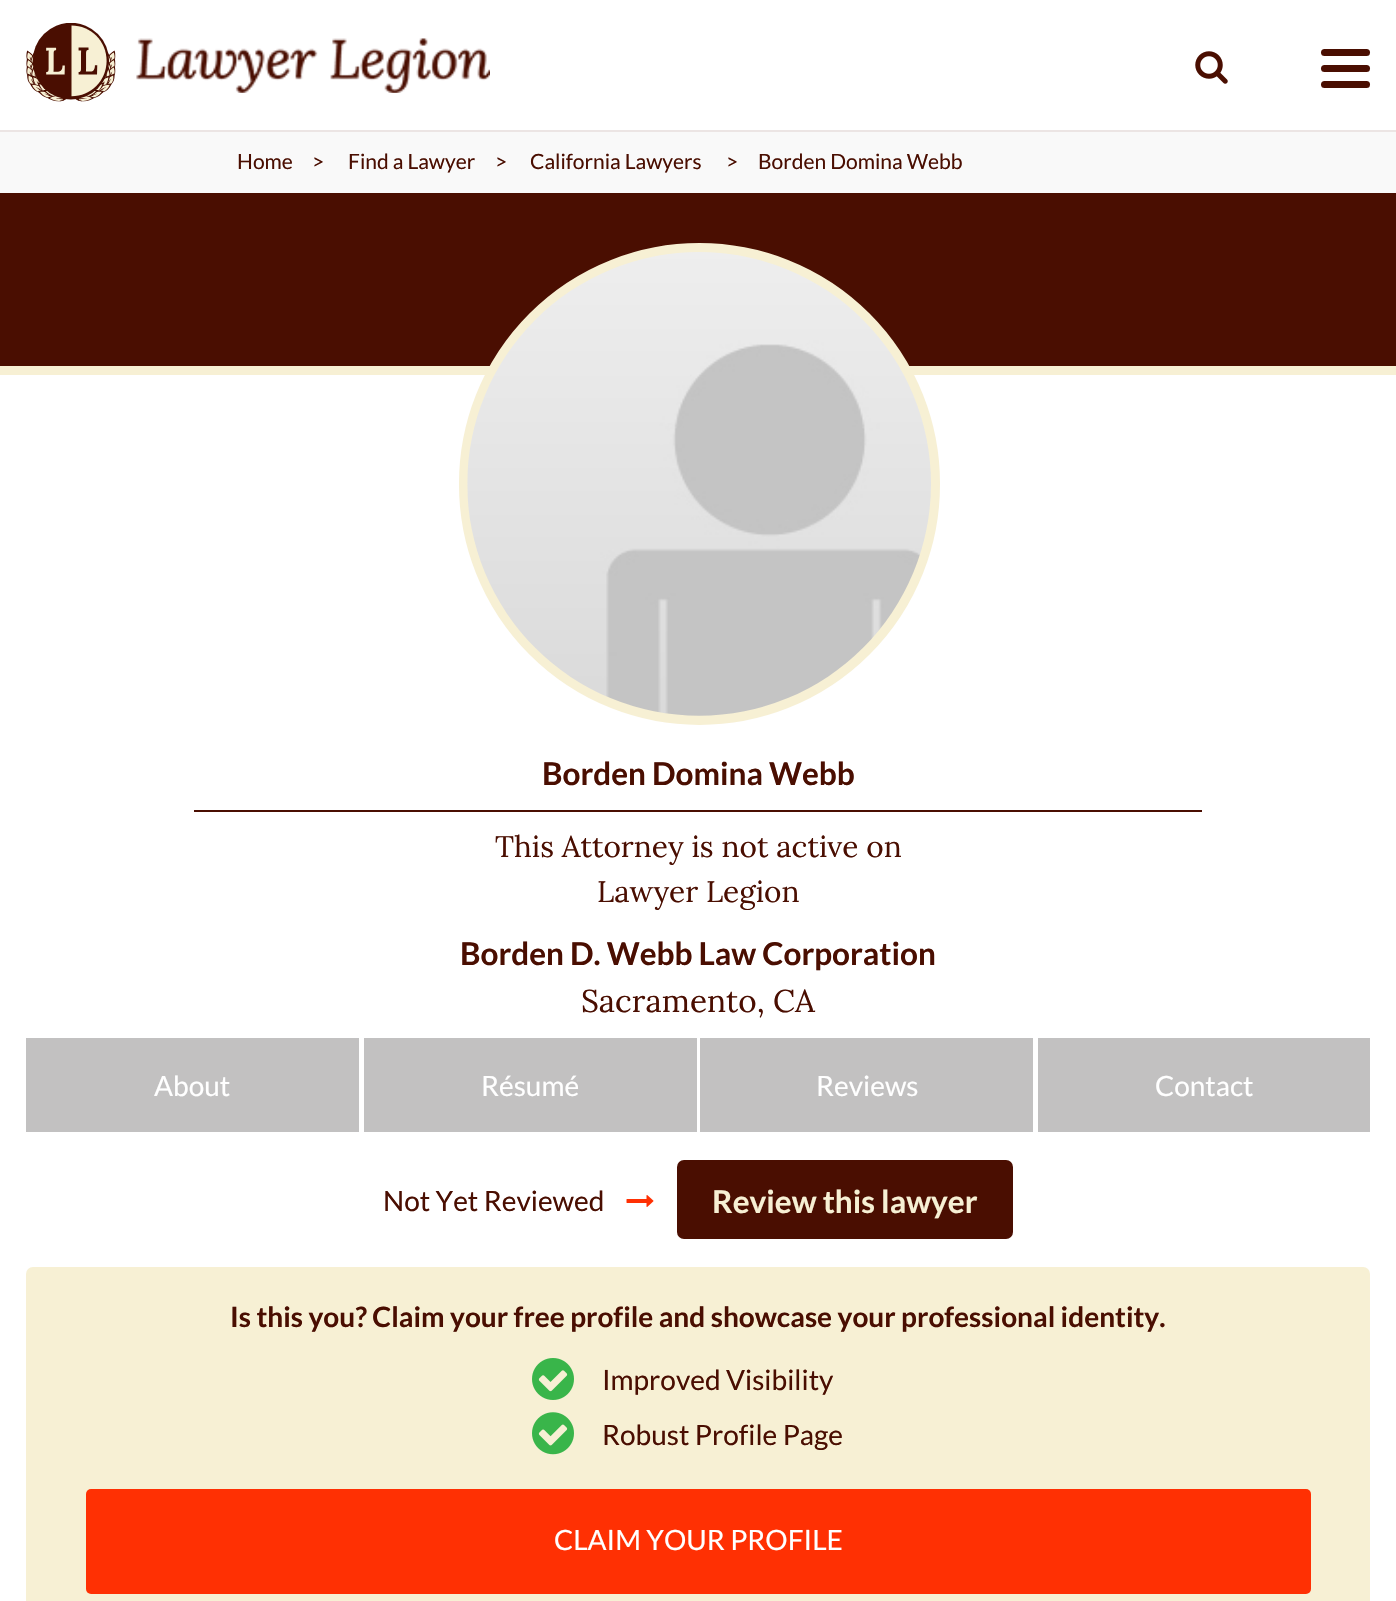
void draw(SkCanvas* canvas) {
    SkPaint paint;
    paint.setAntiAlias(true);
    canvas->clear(0xFFFFFFFF);
    paint.setColor(0xFFECE5E4);
    canvas->drawRect(SkRect::MakeXYWH(0, 130, 1396, 2), paint);
    canvas->drawImageRect(SkImages::DeferredFromEncodedData(SkData::MakeFromFileName("img1.png")), SkRect::MakeXYWH(26, 23, 90, 79), SkSamplingOptions());
    canvas->drawImageRect(SkImages::DeferredFromEncodedData(SkData::MakeFromFileName("img2.png")), SkRect::MakeXYWH(136, 38, 354, 55), SkSamplingOptions());
    canvas->drawImageRect(SkImages::DeferredFromEncodedData(SkData::MakeFromFileName("img3.png")), SkRect::MakeXYWH(1195, 51, 33, 33), SkSamplingOptions());
    paint.setColor(0xFF4A0E01);
    canvas->drawRoundRect(SkRect::MakeXYWH(1321, 49, 49, 7), 3.5f, 3.5f, paint);
    canvas->drawRoundRect(SkRect::MakeXYWH(1321, 65, 49, 7), 3.5f, 3.5f, paint);
    canvas->drawRoundRect(SkRect::MakeXYWH(1321, 81, 49, 7), 3.5f, 3.5f, paint);
    paint.setColor(0xFFF9F9F9);
    canvas->drawRect(SkRect::MakeXYWH(0, 132, 1396, 61), paint);
    SkFont font1(fontMgr->matchFamilyStyle("Lato", SkFontStyle::Normal()), 21);
    font1.setSubpixel(true);
    paint.setColor(0xFF4A0E01);
    canvas->drawString("Home", 237, 169, font1, paint);
    canvas->drawString(">", 312, 169, font1, paint);
    canvas->drawString("Find a Lawyer", 348, 169, font1, paint);
    canvas->drawString(">", 495, 169, font1, paint);
    canvas->drawString("California Lawyers", 530, 169, font1, paint);
    canvas->drawString(">", 726, 169, font1, paint);
    canvas->drawString("Borden Domina Webb", 758, 169, font1, paint);
    canvas->drawRect(SkRect::MakeXYWH(0, 193, 1396, 173), paint);
    paint.setColor(0xFFF7F0D4);
    canvas->drawRect(SkRect::MakeXYWH(0, 366, 1396, 9), paint);
    canvas->drawRoundRect(SkRect::MakeXYWH(463.5f, 247.5f, 472, 473), 236, 236, paint);
    paint.setStyle(SkPaint::kStroke_Style);
    paint.setStrokeWidth(9);
    canvas->drawRoundRect(SkRect::MakeXYWH(463.5f, 247.5f, 472, 473), 236, 236, paint);
    canvas->drawImageRect(SkImages::DeferredFromEncodedData(SkData::MakeFromFileName("img4.png")), SkRect::MakeXYWH(467, 252, 464, 464), SkSamplingOptions());
    SkFont font2(fontMgr->matchFamilyStyle("Lato", SkFontStyle::Bold()), 31.5f);
    font2.setSubpixel(true);
    paint.setStyle(SkPaint::kFill_Style);
    paint.setColor(0xFF4A0E01);
    canvas->drawString("Borden Domina Webb", 542, 785, font2, paint);
    canvas->drawRect(SkRect::MakeXYWH(194, 810, 1008, 2), paint);
    SkFont font3(fontMgr->matchFamilyStyle("Lora", SkFontStyle::Normal()), 29.75f);
    font3.setSubpixel(true);
    canvas->drawString("This Attorney is not active on", 495, 857, font3, paint);
    canvas->drawString("Lawyer Legion", 597, 902, font3, paint);
    canvas->drawString("Borden D. Webb Law Corporation", 460, 965, font2, paint);
    SkFont font4(fontMgr->matchFamilyStyle("Lora", SkFontStyle::Normal()), 31.5f);
    font4.setSubpixel(true);
    canvas->drawString("Sacramento, CA", 581, 1012, font4, paint);
    paint.setColor(0xFFC2C1C1);
    canvas->drawRect(SkRect::MakeXYWH(26, 1038, 333, 94), paint);
    SkFont font5(fontMgr->matchFamilyStyle("Lato", SkFontStyle::Normal()), 28);
    font5.setSubpixel(true);
    paint.setColor(0xFFFFFFFF);
    canvas->drawString("About", 154, 1096, font5, paint);
    paint.setColor(0xFFC2C1C1);
    canvas->drawRect(SkRect::MakeXYWH(364, 1038, 333, 94), paint);
    paint.setColor(0xFFFFFFFF);
    canvas->drawString("Résumé", 481, 1096, font5, paint);
    paint.setColor(0xFFC2C1C1);
    canvas->drawRect(SkRect::MakeXYWH(700, 1038, 333, 94), paint);
    paint.setColor(0xFFFFFFFF);
    canvas->drawString("Reviews", 816, 1096, font5, paint);
    paint.setColor(0xFFC2C1C1);
    canvas->drawRect(SkRect::MakeXYWH(1038, 1038, 332, 94), paint);
    paint.setColor(0xFFFFFFFF);
    canvas->drawString("Contact", 1155, 1096, font5, paint);
    paint.setColor(0xFF4A0E01);
    canvas->drawString("Not Yet Reviewed", 383, 1211, font5, paint);
    canvas->drawImageRect(SkImages::DeferredFromEncodedData(SkData::MakeFromFileName("img5.png")), SkRect::MakeXYWH(626, 1195, 28, 12), SkSamplingOptions());
    canvas->drawRoundRect(SkRect::MakeXYWH(677, 1160, 336, 79), 7, 7, paint);
    paint.setColor(0xFFF7F0D4);
    canvas->drawString("Review this lawyer", 712, 1213, font2, paint);
    canvas->drawRoundRect(SkRect::MakeXYWH(26, 1267, 1344, 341), 7, 7, paint);
    SkFont font6(fontMgr->matchFamilyStyle("Lato", SkFontStyle::Bold()), 28);
    font6.setSubpixel(true);
    paint.setColor(0xFF4A0E01);
    canvas->drawString("Is this you? Claim your free profile and showcase your professional identity.", 230, 1327, font6, paint);
    canvas->drawImageRect(SkImages::DeferredFromEncodedData(SkData::MakeFromFileName("img6.png")), SkRect::MakeXYWH(532, 1358, 42, 42), SkSamplingOptions());
    canvas->drawString("Improved Visibility", 602, 1390, font5, paint);
    canvas->drawImageRect(SkImages::DeferredFromEncodedData(SkData::MakeFromFileName("img7.png")), SkRect::MakeXYWH(532, 1412, 42, 43), SkSamplingOptions());
    canvas->drawString("Robust Profile Page", 602, 1445, font5, paint);
    paint.setColor(0xFFFF3003);
    canvas->drawRoundRect(SkRect::MakeXYWH(86, 1489, 1225, 105), 5, 5, paint);
    paint.setColor(0xFFFFFFFF);
    canvas->drawString("CLAIM YOUR PROFILE", 554, 1550, font5, paint);
}
